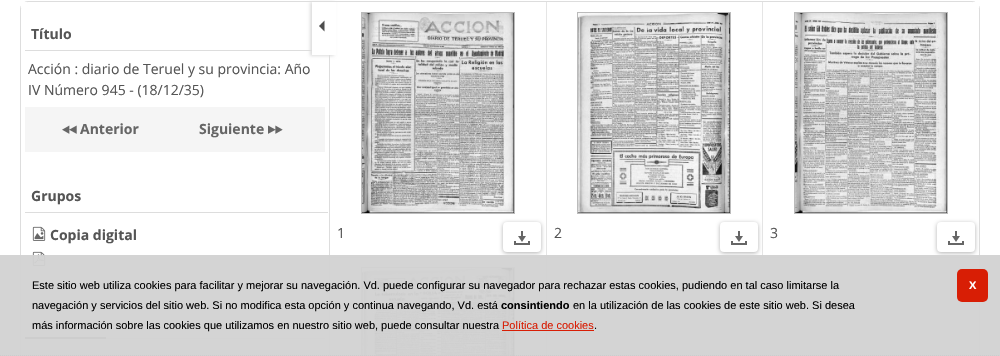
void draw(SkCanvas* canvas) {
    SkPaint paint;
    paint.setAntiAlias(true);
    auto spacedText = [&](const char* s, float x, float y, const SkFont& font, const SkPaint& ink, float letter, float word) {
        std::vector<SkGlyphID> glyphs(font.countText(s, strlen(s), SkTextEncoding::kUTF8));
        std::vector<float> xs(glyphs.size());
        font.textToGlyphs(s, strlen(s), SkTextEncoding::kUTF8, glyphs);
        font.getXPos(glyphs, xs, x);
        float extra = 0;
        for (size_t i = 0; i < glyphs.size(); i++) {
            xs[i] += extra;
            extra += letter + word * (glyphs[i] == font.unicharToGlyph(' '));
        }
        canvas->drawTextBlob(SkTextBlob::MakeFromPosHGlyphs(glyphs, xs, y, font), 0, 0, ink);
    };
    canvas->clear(0xFFFFFFFF);
    paint.setStyle(SkPaint::kStroke_Style);
    paint.setStrokeWidth(1);
    paint.setColor(0xFFDDDDDD);
    canvas->drawRoundRect(SkRect::MakeXYWH(20.5f, 1.5f, 959, 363), 7.5f, 7.5f, paint);
    paint.setStyle(SkPaint::kFill_Style);
    paint.setColor(0xFFFFFFFF);
    canvas->drawRect(SkRect::MakeXYWH(21, 2, 6, 6), paint);
    paint.setColor(0xFFDDDDDD);
    canvas->drawRect(SkRect::MakeXYWH(329, 55, 1, 301), paint);
    canvas->drawRect(SkRect::MakeXYWH(25, 50, 287, 1), paint);
    SkFont font1(fontMgr->matchFamilyStyle("Open Sans", SkFontStyle::Bold()), 14);
    font1.setSubpixel(true);
    paint.setColor(0xFF555555);
    canvas->drawString("Título", 31, 39, font1, paint);
    SkFont font2(fontMgr->matchFamilyStyle("Open Sans", SkFontStyle::Normal()), 14);
    font2.setSubpixel(true);
    canvas->drawString("Acción : diario de Teruel y su provincia: Año", 28, 74, font2, paint);
    canvas->drawString("IV Número 945 - (18/12/35)", 28, 95, font2, paint);
    paint.setColor(0xFFF5F5F5);
    canvas->drawRect(SkRect::MakeXYWH(25, 107, 300, 45), paint);
    canvas->drawImageRect(SkImages::DeferredFromEncodedData(SkData::MakeFromFileName("img1.png")), SkRect::MakeXYWH(62, 125, 15, 9), SkSamplingOptions());
    paint.setColor(0xFF666666);
    canvas->drawString("Anterior", 80, 134, font1, paint);
    canvas->drawString("Siguiente", 199, 134, font1, paint);
    canvas->drawImageRect(SkImages::DeferredFromEncodedData(SkData::MakeFromFileName("img2.png")), SkRect::MakeXYWH(268, 125, 15, 9), SkSamplingOptions());
    paint.setColor(0xFFDDDDDD);
    canvas->drawRect(SkRect::MakeXYWH(25, 212, 303, 1), paint);
    paint.setColor(0xFF555555);
    canvas->drawString("Grupos", 31, 201, font1, paint);
    canvas->drawImageRect(SkImages::DeferredFromEncodedData(SkData::MakeFromFileName("img3.png")), SkRect::MakeXYWH(32, 226, 14, 15), SkSamplingOptions());
    canvas->drawString("Copia digital", 50, 240, font1, paint);
    canvas->drawImageRect(SkImages::DeferredFromEncodedData(SkData::MakeFromFileName("img4.png")), SkRect::MakeXYWH(32, 251, 14, 15), SkSamplingOptions());
    paint.setColor(0xFFDDDDDD);
    canvas->drawRect(SkRect::MakeXYWH(106, 338, 219, 1), paint);
    paint.setColor(0xFF696969);
    canvas->drawRect(SkRect::MakeXYWH(25, 337, 81, 2), paint);
    paint.setColor(0xFFE5E5E5);
    canvas->drawRect(SkRect::MakeXYWH(546, 2, 1, 256), paint);
    canvas->drawRect(SkRect::MakeXYWH(330, 257, 217, 1), paint);
    paint.setColor(0xFFFFFFFF);
    canvas->drawRect(SkRect::MakeXYWH(330, 257, 1, 1), paint);
    paint.setColor(0xFFDDDDDD);
    paint.setMaskFilter(SkMaskFilter::MakeBlur(kNormal_SkBlurStyle, 1.5f));
    canvas->drawRect(SkRect::MakeXYWH(310, 2, 24, 54), paint);
    paint.setMaskFilter(nullptr);
    paint.setColor(0xFFFFFFFF);
    canvas->drawRect(SkRect::MakeXYWH(312, 2, 24, 53), paint);
    canvas->drawImageRect(SkImages::DeferredFromEncodedData(SkData::MakeFromFileName("img5.png")), SkRect::MakeXYWH(319, 20, 6, 12), SkSamplingOptions());
    canvas->drawRect(SkRect::MakeXYWH(973, 2, 6, 6), paint);
    paint.setStyle(SkPaint::kStroke_Style);
    paint.setColor(0xFFBBBBBB);
    canvas->drawRect(SkRect::MakeXYWH(361.5f, 12.5f, 153, 201), paint);
    canvas->drawImageRect(SkImages::DeferredFromEncodedData(SkData::MakeFromFileName("img6.png")), SkRect::MakeXYWH(362, 13, 152, 200), SkSamplingOptions());
    paint.setStyle(SkPaint::kFill_Style);
    paint.setColor(0xFF555555);
    canvas->drawString("1", 337, 238, font2, paint);
    paint.setColor(0x4D000000);
    paint.setMaskFilter(SkMaskFilter::MakeBlur(kNormal_SkBlurStyle, 2));
    canvas->drawRoundRect(SkRect::MakeXYWH(503, 223, 38, 30), 4, 4, paint);
    paint.setMaskFilter(nullptr);
    paint.setColor(0xFFFFFFFF);
    canvas->drawRoundRect(SkRect::MakeXYWH(503, 222, 38, 30), 4, 4, paint);
    canvas->drawImageRect(SkImages::DeferredFromEncodedData(SkData::MakeFromFileName("img7.png")), SkRect::MakeXYWH(514, 231, 16, 14), SkSamplingOptions());
    paint.setColor(0xFFE5E5E5);
    canvas->drawRect(SkRect::MakeXYWH(762, 2, 1, 256), paint);
    canvas->drawRect(SkRect::MakeXYWH(547, 257, 216, 1), paint);
    paint.setStyle(SkPaint::kStroke_Style);
    paint.setColor(0xFFBBBBBB);
    canvas->drawRect(SkRect::MakeXYWH(577.5f, 12.5f, 153, 201), paint);
    canvas->drawImageRect(SkImages::DeferredFromEncodedData(SkData::MakeFromFileName("img8.png")), SkRect::MakeXYWH(578, 13, 152, 200), SkSamplingOptions());
    paint.setStyle(SkPaint::kFill_Style);
    paint.setColor(0xFF555555);
    canvas->drawString("2", 554, 238, font2, paint);
    paint.setColor(0x4D000000);
    paint.setMaskFilter(SkMaskFilter::MakeBlur(kNormal_SkBlurStyle, 2));
    canvas->drawRoundRect(SkRect::MakeXYWH(720, 223, 38, 30), 4, 4, paint);
    paint.setMaskFilter(nullptr);
    paint.setColor(0xFFFFFFFF);
    canvas->drawRoundRect(SkRect::MakeXYWH(720, 222, 38, 30), 4, 4, paint);
    canvas->drawImageRect(SkImages::DeferredFromEncodedData(SkData::MakeFromFileName("img7.png")), SkRect::MakeXYWH(731, 231, 16, 14), SkSamplingOptions());
    paint.setColor(0xFFE5E5E5);
    canvas->drawRect(SkRect::MakeXYWH(763, 257, 216, 1), paint);
    paint.setStyle(SkPaint::kStroke_Style);
    paint.setColor(0xFFBBBBBB);
    canvas->drawRect(SkRect::MakeXYWH(794.5f, 12.5f, 153, 201), paint);
    canvas->drawImageRect(SkImages::DeferredFromEncodedData(SkData::MakeFromFileName("img9.png")), SkRect::MakeXYWH(795, 13, 152, 200), SkSamplingOptions());
    paint.setStyle(SkPaint::kFill_Style);
    paint.setColor(0xFF555555);
    canvas->drawString("3", 770, 238, font2, paint);
    paint.setColor(0x4D000000);
    paint.setMaskFilter(SkMaskFilter::MakeBlur(kNormal_SkBlurStyle, 2));
    canvas->drawRoundRect(SkRect::MakeXYWH(937, 223, 38, 30), 4, 4, paint);
    paint.setMaskFilter(nullptr);
    paint.setColor(0xFFFFFFFF);
    canvas->drawRoundRect(SkRect::MakeXYWH(937, 222, 38, 30), 4, 4, paint);
    canvas->drawImageRect(SkImages::DeferredFromEncodedData(SkData::MakeFromFileName("img7.png")), SkRect::MakeXYWH(948, 231, 16, 14), SkSamplingOptions());
    paint.setColor(0xFFE5E5E5);
    canvas->drawRect(SkRect::MakeXYWH(546, 258, 1, 98), paint);
    paint.setStyle(SkPaint::kStroke_Style);
    paint.setColor(0xFFBBBBBB);
    canvas->drawRect(SkRect::MakeXYWH(361.5f, 267.5f, 153, 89), paint);
    canvas->drawImageRect(SkImages::DeferredFromEncodedData(SkData::MakeFromFileName("img10.png")), SkRect::MakeXYWH(362, 268, 152, 88), SkSamplingOptions());
    paint.setStyle(SkPaint::kFill_Style);
    paint.setColor(0xF2D2D2D2);
    canvas->drawRect(SkRect::MakeXYWH(0, 255, 1000, 101), paint);
    paint.setStyle(SkPaint::kStroke_Style);
    paint.setColor(0xFFCCCCCC);
    paint.setPathEffect(SkDashPathEffect::Make({{1, 1}}, 0));
    canvas->drawPath(SkPathBuilder().moveTo(0, 355.5f).lineTo(1000, 355.5f).detach(), paint);
    paint.setPathEffect(nullptr);
    SkFont font3(fontMgr->matchFamilyStyle("Liberation Sans", SkFontStyle::Normal()), 11);
    font3.setSubpixel(true);
    paint.setStyle(SkPaint::kFill_Style);
    paint.setColor(0xFF000000);
    canvas->drawString("Este sitio web utiliza cookies para facilitar y mejorar su navegación. Vd. puede configurar su navegador para rechazar estas cookies, pudiendo en tal caso limitarse la", 32, 289, font3, paint);
    canvas->drawString("navegación y servicios del sitio web. Si no modifica esta opción y continua navegando, Vd. está", 32, 309, font3, paint);
    SkFont font4(fontMgr->matchFamilyStyle("Liberation Sans", SkFontStyle::Bold()), 11);
    font4.setSubpixel(true);
    canvas->drawString("consintiendo", 501, 309, font4, paint);
    canvas->drawString("en la utilización de las cookies de este sitio web. Si desea", 573, 309, font3, paint);
    canvas->drawString("más información sobre las cookies que utilizamos en nuestro sitio web, puede consultar nuestra", 32, 329, font3, paint);
    paint.setColor(0xFFD81E05);
    canvas->drawString("Política de cookies", 502, 329, font3, paint);
    paint.setColor(0xFF000000);
    canvas->drawString(".", 594, 329, font3, paint);
    paint.setColor(0xFFD81E05);
    canvas->drawRect(SkRect::MakeXYWH(502, 330, 92, 1), paint);
    canvas->drawRoundRect(SkRect::MakeXYWH(957, 269, 31, 33), 5, 5, paint);
    paint.setColor(0xFFFFFFFF);
    spacedText("X", 969, 289, font4, paint, -1, 0);
}
